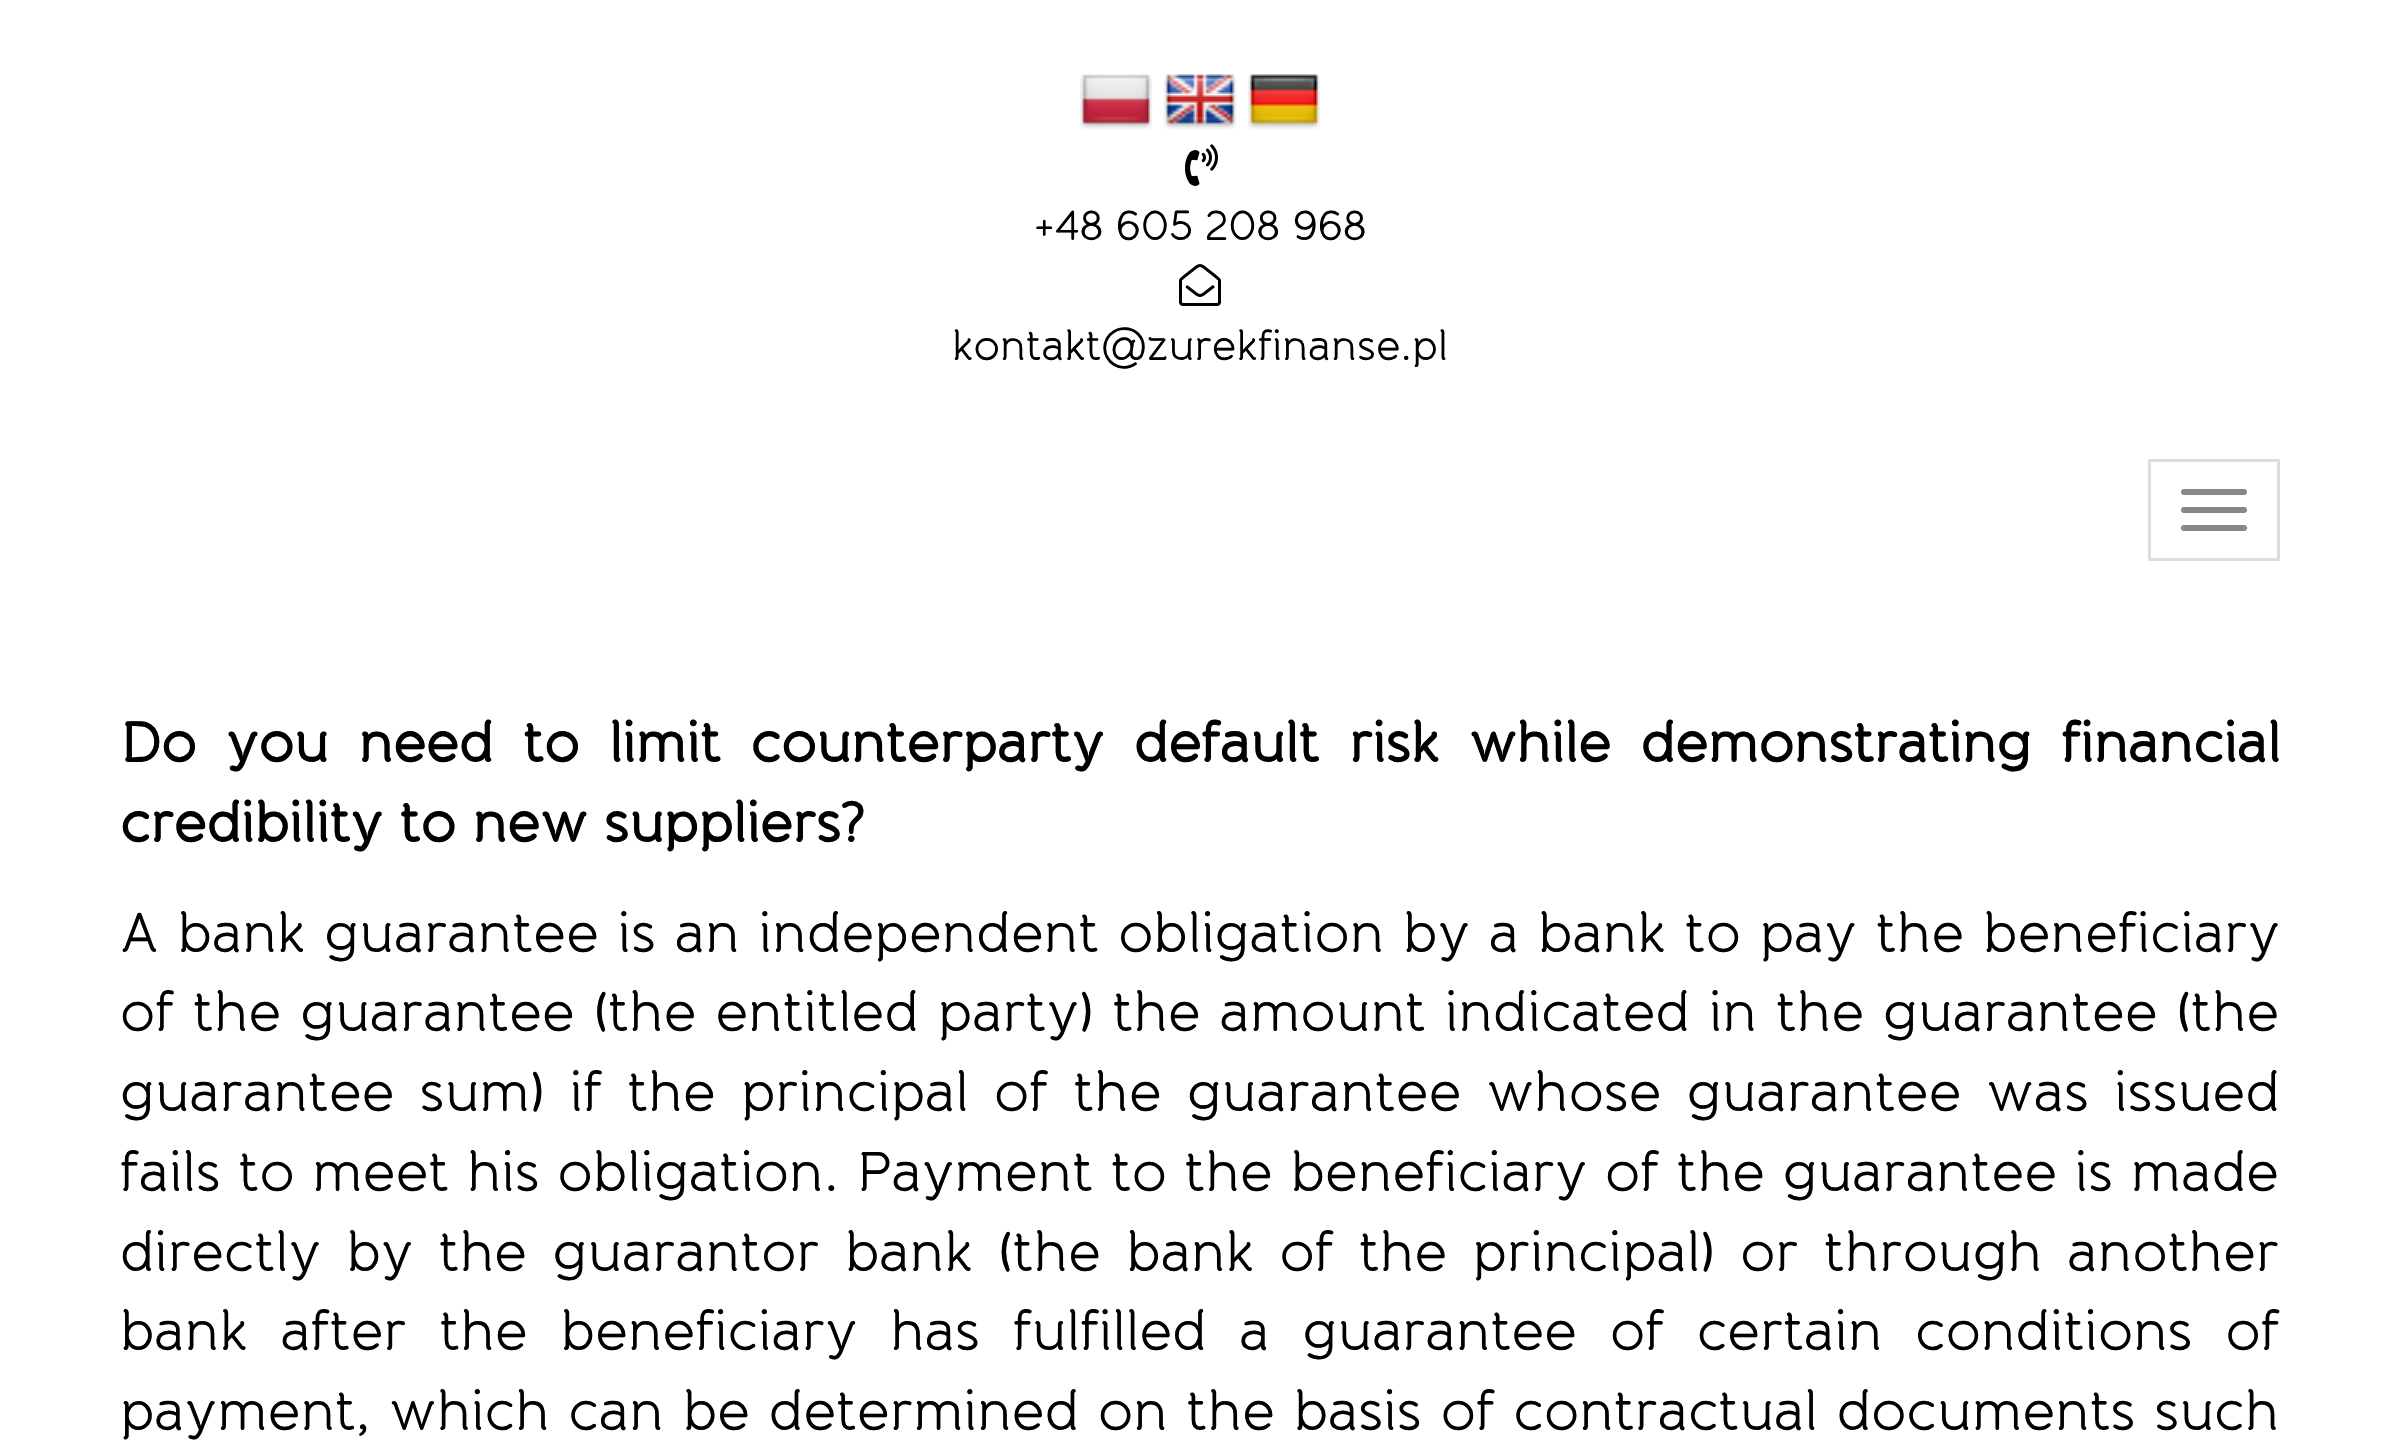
void draw(SkCanvas* canvas) {
    SkPaint paint;
    paint.setAntiAlias(true);
    auto spacedText = [&](const char* s, float x, float y, const SkFont& font, const SkPaint& ink, float letter, float word) {
        std::vector<SkGlyphID> glyphs(font.countText(s, strlen(s), SkTextEncoding::kUTF8));
        std::vector<float> xs(glyphs.size());
        font.textToGlyphs(s, strlen(s), SkTextEncoding::kUTF8, glyphs);
        font.getXPos(glyphs, xs, x);
        float extra = 0;
        for (size_t i = 0; i < glyphs.size(); i++) {
            xs[i] += extra;
            extra += letter + word * (glyphs[i] == font.unicharToGlyph(' '));
        }
        canvas->drawTextBlob(SkTextBlob::MakeFromPosHGlyphs(glyphs, xs, y, font), 0, 0, ink);
    };
    canvas->clear(0xFFFFFFFF);
    canvas->drawImageRect(SkImages::DeferredFromEncodedData(SkData::MakeFromFileName("img1.png")), SkRect::MakeXYWH(1080, 74, 72, 56), SkSamplingOptions());
    canvas->drawImageRect(SkImages::DeferredFromEncodedData(SkData::MakeFromFileName("img2.png")), SkRect::MakeXYWH(1164, 74, 72, 56), SkSamplingOptions());
    canvas->drawImageRect(SkImages::DeferredFromEncodedData(SkData::MakeFromFileName("img3.png")), SkRect::MakeXYWH(1248, 74, 72, 56), SkSamplingOptions());
    canvas->drawImageRect(SkImages::DeferredFromEncodedData(SkData::MakeFromFileName("img4.png")), SkRect::MakeXYWH(1185, 144, 33, 42), SkSamplingOptions());
    SkFont font1(fontMgr->matchFamilyStyle("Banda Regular", SkFontStyle::Normal()), 42);
    font1.setSubpixel(true);
    paint.setColor(0xFF000000);
    canvas->drawString("+48 605 208 968", 1034, 240, font1, paint);
    canvas->drawImageRect(SkImages::DeferredFromEncodedData(SkData::MakeFromFileName("img5.png")), SkRect::MakeXYWH(1179, 264, 42, 42), SkSamplingOptions());
    canvas->drawString("kontakt@zurekfinanse.pl", 952, 360, font1, paint);
    paint.setStyle(SkPaint::kStroke_Style);
    paint.setStrokeWidth(3);
    paint.setColor(0xFFDDDDDD);
    canvas->drawRect(SkRect::MakeXYWH(2149.5f, 460.5f, 129, 99), paint);
    paint.setStyle(SkPaint::kFill_Style);
    paint.setColor(0xFF888888);
    canvas->drawRoundRect(SkRect::MakeXYWH(2181, 489, 66, 6), 3, 3, paint);
    canvas->drawRoundRect(SkRect::MakeXYWH(2181, 507, 66, 6), 3, 3, paint);
    canvas->drawRoundRect(SkRect::MakeXYWH(2181, 525, 66, 6), 3, 3, paint);
    SkFont font2(fontMgr->matchFamilyStyle("Banda Regular", SkFontStyle::Bold()), 55.85f);
    font2.setSubpixel(true);
    paint.setColor(0xFF000000);
    spacedText("Do you need to limit counterparty default risk while demonstrating financial", 120, 762, font2, paint, 0, 13);
    canvas->drawString("credibility to new suppliers?", 120, 842, font2, paint);
    SkFont font3(fontMgr->matchFamilyStyle("Banda Regular", SkFontStyle::Normal()), 55.85f);
    font3.setSubpixel(true);
    spacedText("A bank guarantee is an independent obligation by a bank to pay the beneficiary", 120, 952, font3, paint, 0, 2.1f);
    spacedText("of the guarantee (the entitled party) the amount indicated in the guarantee (the", 120, 1031, font3, paint, 0, 2.1f);
    spacedText("guarantee sum) if the principal of the guarantee whose guarantee was issued", 120, 1111, font3, paint, 0, 8.4f);
    spacedText("fails to meet his obligation. Payment to the beneficiary of the guarantee is made", 120, 1191, font3, paint, 0, 0.8f);
    spacedText("directly by the guarantor bank (the bank of the principal) or through another", 120, 1271, font3, paint, 0, 8.5f);
    spacedText("bank after the beneficiary has fulfilled a guarantee of certain conditions of", 120, 1350, font3, paint, 0, 16);
    spacedText("payment, which can be determined on the basis of contractual documents such", 120, 1430, font3, paint, 0, 2);
}
